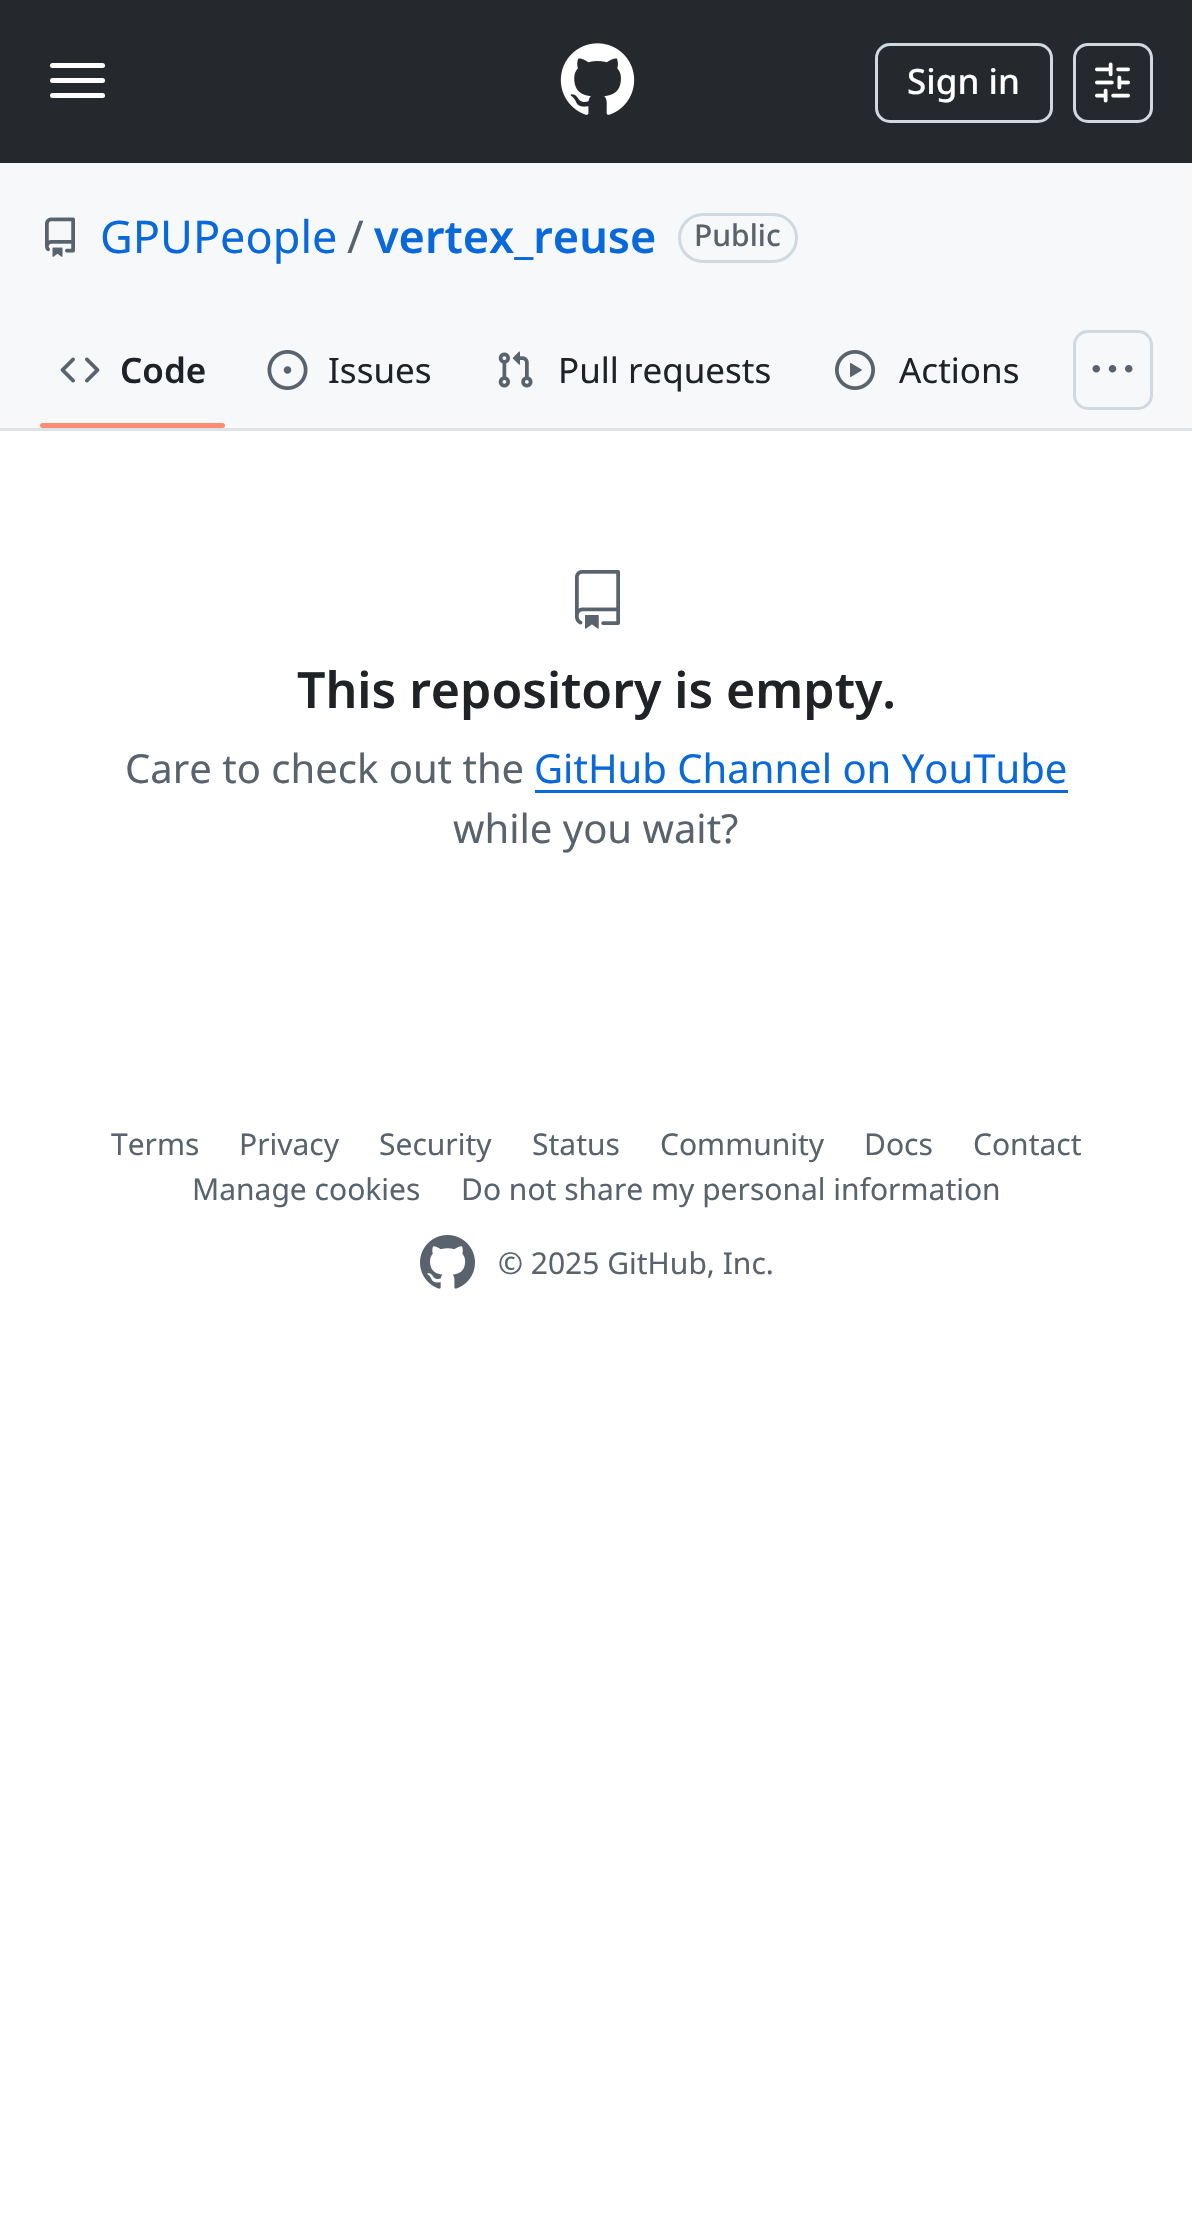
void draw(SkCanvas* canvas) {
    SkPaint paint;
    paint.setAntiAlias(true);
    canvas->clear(0xFFFFFFFF);
    paint.setColor(0xFFDFE4E9);
    canvas->drawRect(SkRect::MakeXYWH(0, 430, 1192, 1), paint);
    paint.setColor(0xFF25292E);
    canvas->drawRect(SkRect::MakeXYWH(0, 0, 1192, 163), paint);
    paint.setColor(0xFFFFFFFF);
    canvas->drawRoundRect(SkRect::MakeXYWH(50, 63, 55, 5), 2.5f, 2.5f, paint);
    canvas->drawRoundRect(SkRect::MakeXYWH(50, 78, 55, 5), 2.5f, 2.5f, paint);
    canvas->drawRoundRect(SkRect::MakeXYWH(50, 93, 55, 5), 2.5f, 2.5f, paint);
    canvas->drawImageRect(SkImages::DeferredFromEncodedData(SkData::MakeFromFileName("img1.png")), SkRect::MakeXYWH(560, 43, 75, 72), SkSamplingOptions());
    paint.setStyle(SkPaint::kStroke_Style);
    paint.setStrokeWidth(3);
    paint.setColor(0xFFD1D9E0);
    canvas->drawRoundRect(SkRect::MakeXYWH(876.5f, 44.5f, 175, 77), 13.5f, 13.5f, paint);
    SkFont font1(fontMgr->matchFamilyStyle("Noto Sans", SkFontStyle(500, SkFontStyle::kNormal_Width, SkFontStyle::kUpright_Slant)), 35);
    font1.setSubpixel(true);
    paint.setStyle(SkPaint::kFill_Style);
    paint.setColor(0xFFFFFFFF);
    canvas->drawString("Sign in", 907, 94, font1, paint);
    paint.setStyle(SkPaint::kStroke_Style);
    paint.setColor(0xFFD1D9E0);
    canvas->drawRoundRect(SkRect::MakeXYWH(1074.5f, 44.5f, 77, 77), 13.5f, 13.5f, paint);
    canvas->drawImageRect(SkImages::DeferredFromEncodedData(SkData::MakeFromFileName("img2.png")), SkRect::MakeXYWH(1095, 62, 35, 41), SkSamplingOptions());
    paint.setStyle(SkPaint::kFill_Style);
    paint.setColor(0xFFF6F8FA);
    canvas->drawRect(SkRect::MakeXYWH(0, 163, 1192, 265), paint);
    paint.setColor(0xFFDCE2E8);
    canvas->drawRect(SkRect::MakeXYWH(0, 428, 1192, 2), paint);
    canvas->drawImageRect(SkImages::DeferredFromEncodedData(SkData::MakeFromFileName("img3.png")), SkRect::MakeXYWH(45, 217, 30, 40), SkSamplingOptions());
    SkFont font2(fontMgr->matchFamilyStyle("Noto Sans", SkFontStyle::Normal()), 45);
    font2.setSubpixel(true);
    paint.setColor(0xFF0969DA);
    canvas->drawString("GPUPeople", 100, 253, font2, paint);
    paint.setColor(0xFF59636E);
    canvas->drawString("/", 347, 253, font2, paint);
    SkFont font3(fontMgr->matchFamilyStyle("Noto Sans", SkFontStyle(600, SkFontStyle::kNormal_Width, SkFontStyle::kUpright_Slant)), 45);
    font3.setSubpixel(true);
    paint.setColor(0xFF0969DA);
    canvas->drawString("vertex_reuse", 374, 253, font3, paint);
    paint.setStyle(SkPaint::kStroke_Style);
    paint.setColor(0xFFD1D9E0);
    canvas->drawRoundRect(SkRect::MakeXYWH(679.5f, 214.5f, 117, 47), 23.5f, 23.5f, paint);
    SkFont font4(fontMgr->matchFamilyStyle("Noto Sans", SkFontStyle(500, SkFontStyle::kNormal_Width, SkFontStyle::kUpright_Slant)), 30);
    font4.setSubpixel(true);
    paint.setStyle(SkPaint::kFill_Style);
    paint.setColor(0xFF59636E);
    canvas->drawString("Public", 694, 246, font4, paint);
    canvas->drawImageRect(SkImages::DeferredFromEncodedData(SkData::MakeFromFileName("img4.png")), SkRect::MakeXYWH(60, 357, 40, 26), SkSamplingOptions());
    SkFont font5(fontMgr->matchFamilyStyle("Noto Sans", SkFontStyle(600, SkFontStyle::kNormal_Width, SkFontStyle::kUpright_Slant)), 35);
    font5.setSubpixel(true);
    paint.setColor(0xFF1F2328);
    canvas->drawString("Code", 120, 383, font5, paint);
    paint.setColor(0xFFFD8C73);
    canvas->drawRoundRect(SkRect::MakeXYWH(40, 423, 185, 5), 2.5f, 2.5f, paint);
    canvas->drawImageRect(SkImages::DeferredFromEncodedData(SkData::MakeFromFileName("img5.png")), SkRect::MakeXYWH(267, 350, 41, 40), SkSamplingOptions());
    SkFont font6(fontMgr->matchFamilyStyle("Noto Sans", SkFontStyle::Normal()), 35);
    font6.setSubpixel(true);
    paint.setColor(0xFF1F2328);
    canvas->drawString("Issues", 328, 383, font6, paint);
    canvas->drawImageRect(SkImages::DeferredFromEncodedData(SkData::MakeFromFileName("img6.png")), SkRect::MakeXYWH(498, 351, 35, 37), SkSamplingOptions());
    canvas->drawString("Pull requests", 558, 383, font6, paint);
    canvas->drawImageRect(SkImages::DeferredFromEncodedData(SkData::MakeFromFileName("img7.png")), SkRect::MakeXYWH(835, 350, 40, 40), SkSamplingOptions());
    canvas->drawString("Actions", 899, 383, font6, paint);
    paint.setStyle(SkPaint::kStroke_Style);
    paint.setColor(0xFFD1D9E0);
    canvas->drawRoundRect(SkRect::MakeXYWH(1074.5f, 331.5f, 77, 77), 13.5f, 13.5f, paint);
    canvas->drawImageRect(SkImages::DeferredFromEncodedData(SkData::MakeFromFileName("img8.png")), SkRect::MakeXYWH(1092, 365, 41, 8), SkSamplingOptions());
    canvas->drawImageRect(SkImages::DeferredFromEncodedData(SkData::MakeFromFileName("img9.png")), SkRect::MakeXYWH(575, 570, 45, 59), SkSamplingOptions());
    SkFont font7(fontMgr->matchFamilyStyle("Noto Sans", SkFontStyle(600, SkFontStyle::kNormal_Width, SkFontStyle::kUpright_Slant)), 50);
    font7.setSubpixel(true);
    paint.setStyle(SkPaint::kFill_Style);
    paint.setColor(0xFF1F2328);
    canvas->drawString("This repository is empty.", 297, 708, font7, paint);
    SkFont font8(fontMgr->matchFamilyStyle("Noto Sans", SkFontStyle::Normal()), 40);
    font8.setSubpixel(true);
    paint.setColor(0xFF59636E);
    canvas->drawString("Care to check out the", 125, 783, font8, paint);
    paint.setColor(0xFF0969DA);
    canvas->drawString("GitHub Channel on YouTube", 534, 783, font8, paint);
    canvas->drawRect(SkRect::MakeXYWH(535, 790, 533, 3), paint);
    paint.setColor(0xFF59636E);
    canvas->drawString("while you wait?", 453, 843, font8, paint);
    SkFont font9(fontMgr->matchFamilyStyle("Noto Sans", SkFontStyle::Normal()), 30);
    font9.setSubpixel(true);
    canvas->drawString("Terms", 111, 1155, font9, paint);
    canvas->drawString("Privacy", 239, 1155, font9, paint);
    canvas->drawString("Security", 379, 1155, font9, paint);
    canvas->drawString("Status", 532, 1155, font9, paint);
    canvas->drawString("Community", 660, 1155, font9, paint);
    canvas->drawString("Docs", 864, 1155, font9, paint);
    canvas->drawString("Contact", 973, 1155, font9, paint);
    canvas->drawString("Manage cookies", 192, 1200, font9, paint);
    canvas->drawString("Do not share my personal information", 461, 1200, font9, paint);
    canvas->drawImageRect(SkImages::DeferredFromEncodedData(SkData::MakeFromFileName("img10.png")), SkRect::MakeXYWH(420, 1235, 55, 54), SkSamplingOptions());
    canvas->drawString("© 2025 GitHub, Inc.", 498, 1274, font9, paint);
}
